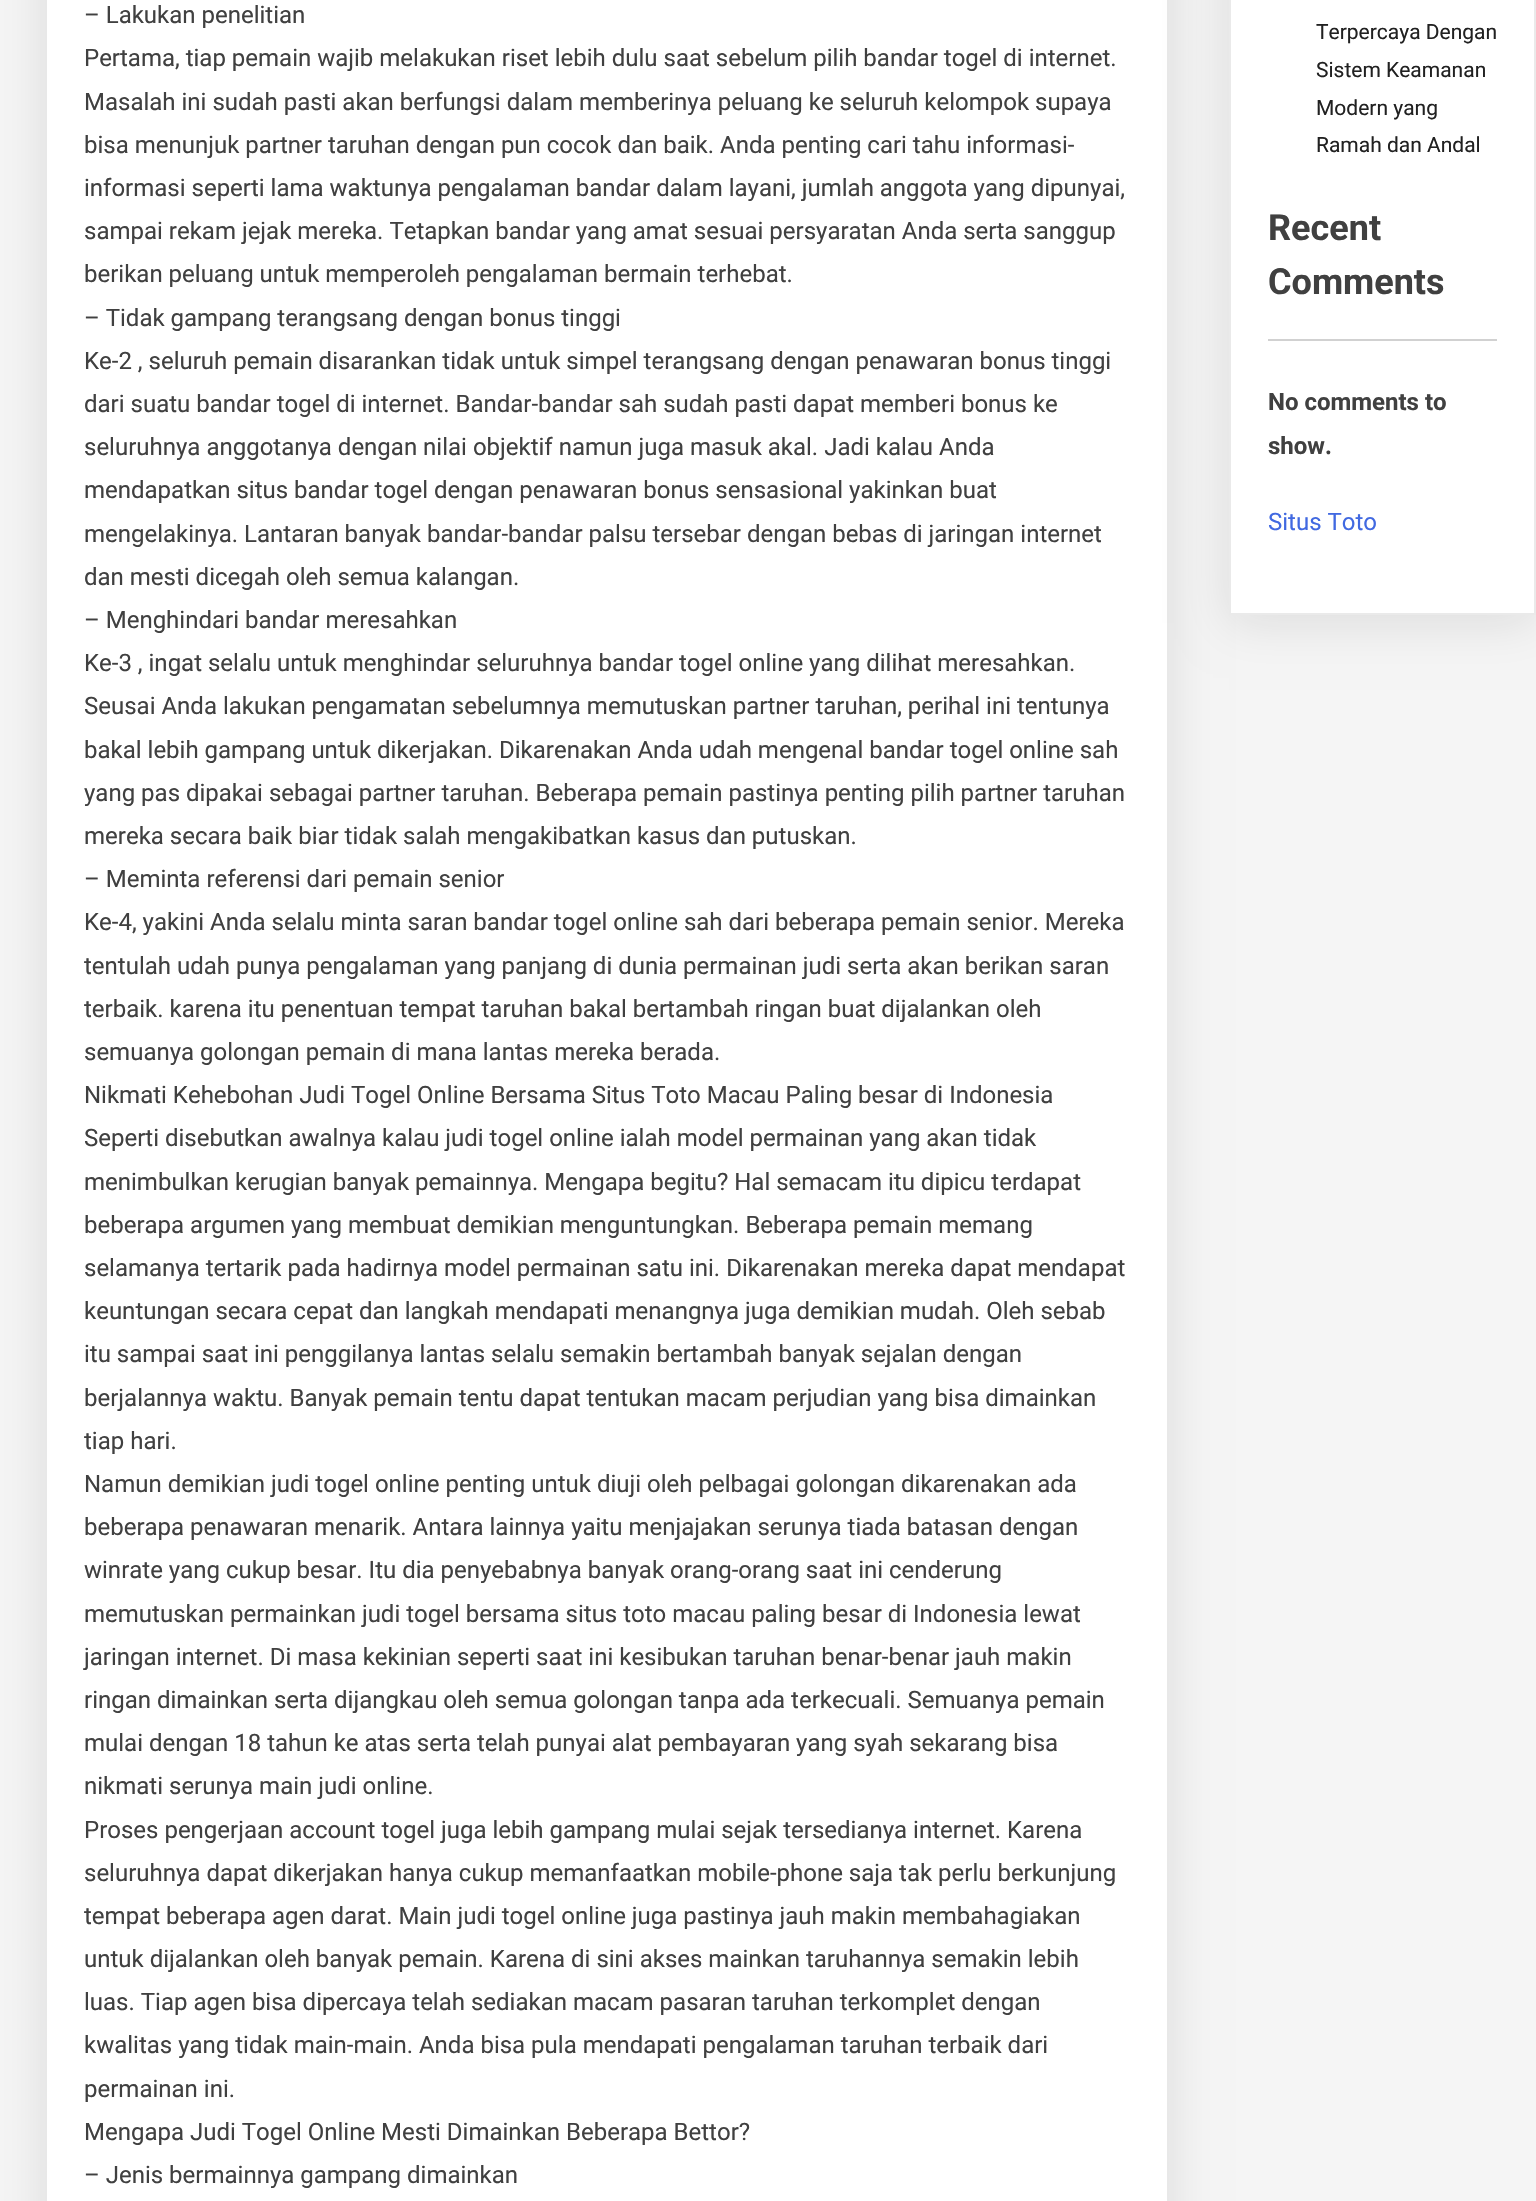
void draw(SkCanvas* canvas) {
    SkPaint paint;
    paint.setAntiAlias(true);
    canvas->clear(0xFFF5F5F5);
    paint.setColor(0x1A000000);
    paint.setMaskFilter(SkMaskFilter::MakeBlur(kNormal_SkBlurStyle, 22.5f));
    canvas->drawRect(SkRect::MakeXYWH(45, -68, 1124, 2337), paint);
    paint.setMaskFilter(nullptr);
    paint.setColor(0xFFFFFFFF);
    canvas->drawRect(SkRect::MakeXYWH(47, 0, 1120, 2201), paint);
    SkFont font1(fontMgr->matchFamilyStyle("Roboto", SkFontStyle::Normal()), 24);
    font1.setSubpixel(true);
    paint.setColor(0xFF404040);
    canvas->drawString("– Lakukan penelitian", 84, 23, font1, paint);
    canvas->drawString("Pertama, tiap pemain wajib melakukan riset lebih dulu saat sebelum pilih bandar togel di internet.", 84, 66, font1, paint);
    canvas->drawString("Masalah ini sudah pasti akan berfungsi dalam memberinya peluang ke seluruh kelompok supaya", 84, 110, font1, paint);
    canvas->drawString("bisa menunjuk partner taruhan dengan pun cocok dan baik. Anda penting cari tahu informasi-", 84, 153, font1, paint);
    canvas->drawString("informasi seperti lama waktunya pengalaman bandar dalam layani, jumlah anggota yang dipunyai,", 84, 196, font1, paint);
    canvas->drawString("sampai rekam jejak mereka. Tetapkan bandar yang amat sesuai persyaratan Anda serta sanggup", 84, 239, font1, paint);
    canvas->drawString("berikan peluang untuk memperoleh pengalaman bermain terhebat.", 84, 282, font1, paint);
    canvas->drawString("– Tidak gampang terangsang dengan bonus tinggi", 84, 326, font1, paint);
    canvas->drawString("Ke-2 , seluruh pemain disarankan tidak untuk simpel terangsang dengan penawaran bonus tinggi", 84, 369, font1, paint);
    canvas->drawString("dari suatu bandar togel di internet. Bandar-bandar sah sudah pasti dapat memberi bonus ke", 84, 412, font1, paint);
    canvas->drawString("seluruhnya anggotanya dengan nilai objektif namun juga masuk akal. Jadi kalau Anda", 84, 455, font1, paint);
    canvas->drawString("mendapatkan situs bandar togel dengan penawaran bonus sensasional yakinkan buat", 84, 498, font1, paint);
    canvas->drawString("mengelakinya. Lantaran banyak bandar-bandar palsu tersebar dengan bebas di jaringan internet", 84, 542, font1, paint);
    canvas->drawString("dan mesti dicegah oleh semua kalangan.", 84, 585, font1, paint);
    canvas->drawString("– Menghindari bandar meresahkan", 84, 628, font1, paint);
    canvas->drawString("Ke-3 , ingat selalu untuk menghindar seluruhnya bandar togel online yang dilihat meresahkan.", 84, 671, font1, paint);
    canvas->drawString("Seusai Anda lakukan pengamatan sebelumnya memutuskan partner taruhan, perihal ini tentunya", 84, 714, font1, paint);
    canvas->drawString("bakal lebih gampang untuk dikerjakan. Dikarenakan Anda udah mengenal bandar togel online sah", 84, 758, font1, paint);
    canvas->drawString("yang pas dipakai sebagai partner taruhan. Beberapa pemain pastinya penting pilih partner taruhan", 84, 801, font1, paint);
    canvas->drawString("mereka secara baik biar tidak salah mengakibatkan kasus dan putuskan.", 84, 844, font1, paint);
    canvas->drawString("– Meminta referensi dari pemain senior", 84, 887, font1, paint);
    canvas->drawString("Ke-4, yakini Anda selalu minta saran bandar togel online sah dari beberapa pemain senior. Mereka", 84, 930, font1, paint);
    canvas->drawString("tentulah udah punya pengalaman yang panjang di dunia permainan judi serta akan berikan saran", 84, 974, font1, paint);
    canvas->drawString("terbaik. karena itu penentuan tempat taruhan bakal bertambah ringan buat dijalankan oleh", 84, 1017, font1, paint);
    canvas->drawString("semuanya golongan pemain di mana lantas mereka berada.", 84, 1060, font1, paint);
    canvas->drawString("Nikmati Kehebohan Judi Togel Online Bersama Situs Toto Macau Paling besar di Indonesia", 84, 1103, font1, paint);
    canvas->drawString("Seperti disebutkan awalnya kalau judi togel online ialah model permainan yang akan tidak", 84, 1146, font1, paint);
    canvas->drawString("menimbulkan kerugian banyak pemainnya. Mengapa begitu? Hal semacam itu dipicu terdapat", 84, 1190, font1, paint);
    canvas->drawString("beberapa argumen yang membuat demikian menguntungkan. Beberapa pemain memang", 84, 1233, font1, paint);
    canvas->drawString("selamanya tertarik pada hadirnya model permainan satu ini. Dikarenakan mereka dapat mendapat", 84, 1276, font1, paint);
    canvas->drawString("keuntungan secara cepat dan langkah mendapati menangnya juga demikian mudah. Oleh sebab", 84, 1319, font1, paint);
    canvas->drawString("itu sampai saat ini penggilanya lantas selalu semakin bertambah banyak sejalan dengan", 84, 1362, font1, paint);
    canvas->drawString("berjalannya waktu. Banyak pemain tentu dapat tentukan macam perjudian yang bisa dimainkan", 84, 1406, font1, paint);
    canvas->drawString("tiap hari.", 84, 1449, font1, paint);
    canvas->drawString("Namun demikian judi togel online penting untuk diuji oleh pelbagai golongan dikarenakan ada", 84, 1492, font1, paint);
    canvas->drawString("beberapa penawaran menarik. Antara lainnya yaitu menjajakan serunya tiada batasan dengan", 84, 1535, font1, paint);
    canvas->drawString("winrate yang cukup besar. Itu dia penyebabnya banyak orang-orang saat ini cenderung", 84, 1578, font1, paint);
    canvas->drawString("memutuskan permainkan judi togel bersama situs toto macau paling besar di Indonesia lewat", 84, 1622, font1, paint);
    canvas->drawString("jaringan internet. Di masa kekinian seperti saat ini kesibukan taruhan benar-benar jauh makin", 84, 1665, font1, paint);
    canvas->drawString("ringan dimainkan serta dijangkau oleh semua golongan tanpa ada terkecuali. Semuanya pemain", 84, 1708, font1, paint);
    canvas->drawString("mulai dengan 18 tahun ke atas serta telah punyai alat pembayaran yang syah sekarang bisa", 84, 1751, font1, paint);
    canvas->drawString("nikmati serunya main judi online.", 84, 1794, font1, paint);
    canvas->drawString("Proses pengerjaan account togel juga lebih gampang mulai sejak tersedianya internet. Karena", 84, 1838, font1, paint);
    canvas->drawString("seluruhnya dapat dikerjakan hanya cukup memanfaatkan mobile-phone saja tak perlu berkunjung", 84, 1881, font1, paint);
    canvas->drawString("tempat beberapa agen darat. Main judi togel online juga pastinya jauh makin membahagiakan", 84, 1924, font1, paint);
    canvas->drawString("untuk dijalankan oleh banyak pemain. Karena di sini akses mainkan taruhannya semakin lebih", 84, 1967, font1, paint);
    canvas->drawString("luas. Tiap agen bisa dipercaya telah sediakan macam pasaran taruhan terkomplet dengan", 84, 2010, font1, paint);
    canvas->drawString("kwalitas yang tidak main-main. Anda bisa pula mendapati pengalaman taruhan terbaik dari", 84, 2053, font1, paint);
    canvas->drawString("permainan ini.", 84, 2097, font1, paint);
    canvas->drawString("Mengapa Judi Togel Online Mesti Dimainkan Beberapa Bettor?", 84, 2140, font1, paint);
    canvas->drawString("– Jenis bermainnya gampang dimainkan", 84, 2183, font1, paint);
    paint.setColor(0x1A000000);
    paint.setMaskFilter(SkMaskFilter::MakeBlur(kNormal_SkBlurStyle, 22.5f));
    canvas->drawRect(SkRect::MakeXYWH(1229, -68, 307, 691), paint);
    paint.setMaskFilter(nullptr);
    paint.setColor(0xFFFFFFFF);
    canvas->drawRect(SkRect::MakeXYWH(1230, -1, 305, 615), paint);
    paint.setStyle(SkPaint::kStroke_Style);
    paint.setStrokeWidth(2);
    paint.setColor(0xFFEAEAEA);
    canvas->drawRect(SkRect::MakeXYWH(1230, -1, 305, 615), paint);
    SkFont font2(fontMgr->matchFamilyStyle("Roboto", SkFontStyle::Normal()), 21);
    font2.setSubpixel(true);
    paint.setStyle(SkPaint::kFill_Style);
    paint.setColor(0xFF212121);
    canvas->drawString("Terpercaya Dengan", 1316, 39, font2, paint);
    canvas->drawString("Sistem Keamanan", 1316, 77, font2, paint);
    canvas->drawString("Modern yang", 1316, 115, font2, paint);
    canvas->drawString("Ramah dan Andal", 1316, 152, font2, paint);
    SkFont font3(fontMgr->matchFamilyStyle("Roboto", SkFontStyle::Bold()), 36);
    font3.setSubpixel(true);
    paint.setColor(0xFF404040);
    canvas->drawString("Recent", 1268, 240, font3, paint);
    canvas->drawString("Comments", 1268, 294, font3, paint);
    paint.setColor(0xFFD1D1D1);
    canvas->drawRect(SkRect::MakeXYWH(1268, 339, 229, 2), paint);
    SkFont font4(fontMgr->matchFamilyStyle("Roboto", SkFontStyle::Bold()), 24);
    font4.setSubpixel(true);
    paint.setColor(0xFF404040);
    canvas->drawString("No comments to", 1268, 410, font4, paint);
    canvas->drawString("show.", 1268, 454, font4, paint);
    paint.setColor(0xFF4169E1);
    canvas->drawString("Situs Toto", 1268, 530, font1, paint);
}
